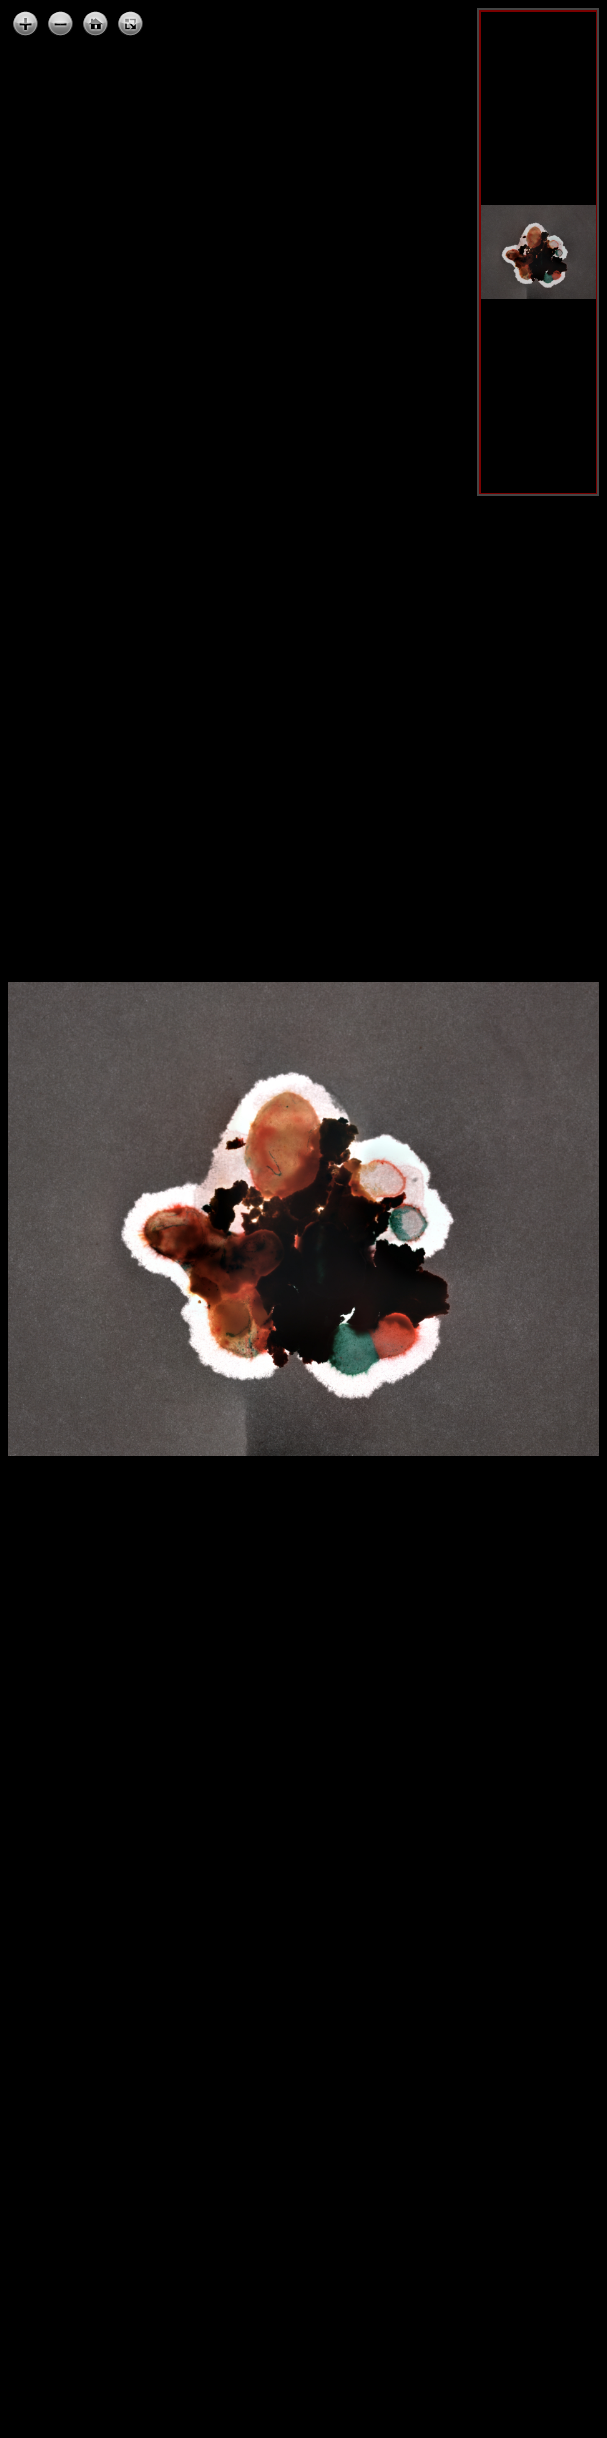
void draw(SkCanvas* canvas) {
    SkPaint paint;
    paint.setAntiAlias(true);
    canvas->clear(0xFF000000);
    canvas->drawImageRect(SkImages::DeferredFromEncodedData(SkData::MakeFromFileName("img1.png")), SkRect::MakeXYWH(13, 11, 25, 25), SkSamplingOptions());
    canvas->drawImageRect(SkImages::DeferredFromEncodedData(SkData::MakeFromFileName("img2.png")), SkRect::MakeXYWH(13, 11, 25, 25), SkSamplingOptions());
    canvas->drawImageRect(SkImages::DeferredFromEncodedData(SkData::MakeFromFileName("img3.png")), SkRect::MakeXYWH(48, 11, 25, 25), SkSamplingOptions());
    canvas->drawImageRect(SkImages::DeferredFromEncodedData(SkData::MakeFromFileName("img4.png")), SkRect::MakeXYWH(48, 11, 25, 25), SkSamplingOptions());
    canvas->drawImageRect(SkImages::DeferredFromEncodedData(SkData::MakeFromFileName("img5.png")), SkRect::MakeXYWH(83, 11, 25, 25), SkSamplingOptions());
    canvas->drawImageRect(SkImages::DeferredFromEncodedData(SkData::MakeFromFileName("img6.png")), SkRect::MakeXYWH(83, 11, 25, 25), SkSamplingOptions());
    canvas->drawImageRect(SkImages::DeferredFromEncodedData(SkData::MakeFromFileName("img7.png")), SkRect::MakeXYWH(118, 11, 25, 25), SkSamplingOptions());
    canvas->drawImageRect(SkImages::DeferredFromEncodedData(SkData::MakeFromFileName("img8.png")), SkRect::MakeXYWH(118, 11, 25, 25), SkSamplingOptions());
    paint.setStyle(SkPaint::kStroke_Style);
    paint.setStrokeWidth(2);
    paint.setColor(0xFF444444);
    canvas->drawRect(SkRect::MakeXYWH(478, 9, 120, 486), paint);
    canvas->drawImageRect(SkImages::DeferredFromEncodedData(SkData::MakeFromFileName("img9.png")), SkRect::MakeXYWH(481, 205, 115, 94), SkSamplingOptions());
    canvas->save();
    canvas->clipRect(SkRect::MakeXYWH(479, 10, 118, 484));
    paint.setColor(0xFF7A0000);
    canvas->drawRect(SkRect::MakeXYWH(480, 11, 117, 483), paint);
    canvas->restore();
    canvas->drawImageRect(SkImages::DeferredFromEncodedData(SkData::MakeFromFileName("img10.png")), SkRect::MakeXYWH(8, 982, 591, 474), SkSamplingOptions());
}
